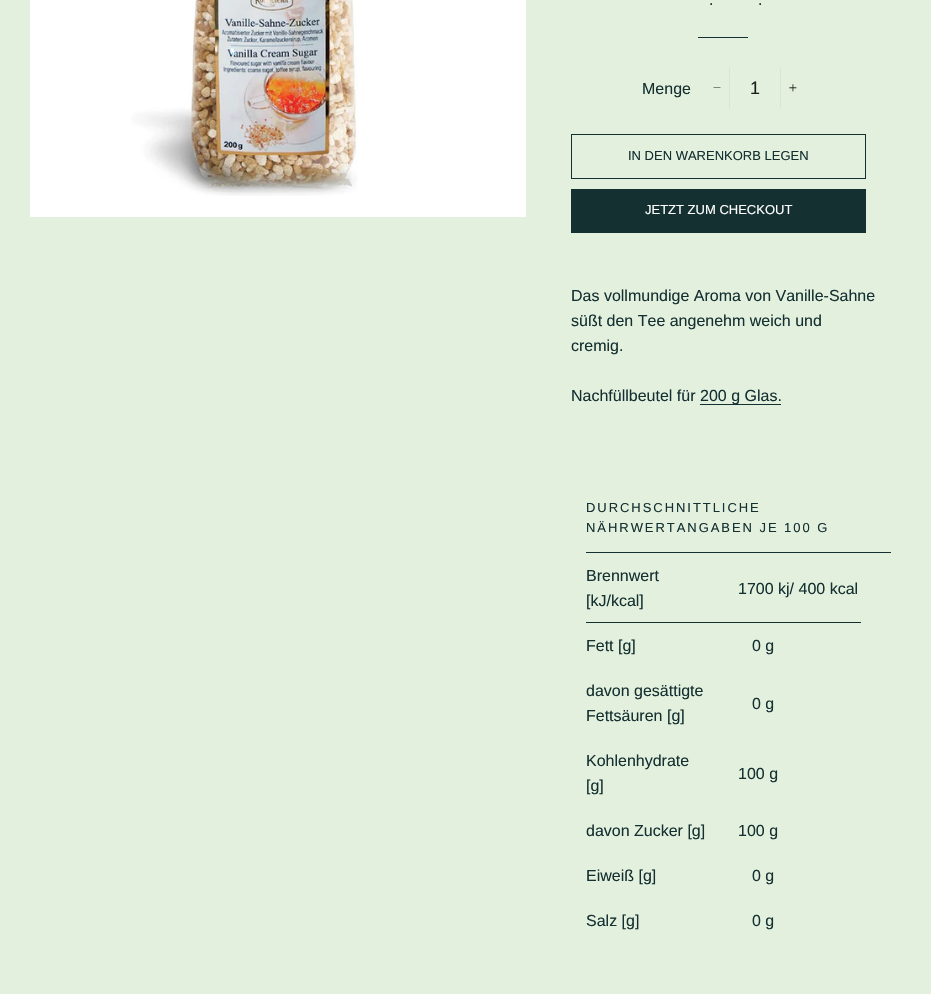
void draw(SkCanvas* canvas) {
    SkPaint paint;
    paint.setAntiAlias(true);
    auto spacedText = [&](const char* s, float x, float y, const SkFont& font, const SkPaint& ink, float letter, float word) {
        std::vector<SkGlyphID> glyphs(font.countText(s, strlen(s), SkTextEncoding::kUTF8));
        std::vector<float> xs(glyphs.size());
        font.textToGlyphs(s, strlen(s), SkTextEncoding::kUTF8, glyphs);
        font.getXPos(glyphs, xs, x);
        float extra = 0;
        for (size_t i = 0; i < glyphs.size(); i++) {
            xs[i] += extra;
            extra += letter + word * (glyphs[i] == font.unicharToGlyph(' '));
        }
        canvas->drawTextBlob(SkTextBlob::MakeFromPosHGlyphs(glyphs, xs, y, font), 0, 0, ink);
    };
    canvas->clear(0xFFE3F0DE);
    paint.setColor(0xFFFFFFFF);
    canvas->drawRect(SkRect::MakeXYWH(30, 0, 496, 217), paint);
    canvas->drawImageRect(SkImages::DeferredFromEncodedData(SkData::MakeFromFileName("img1.png")), SkRect::MakeXYWH(131, 0, 227, 196), SkSamplingOptions());
    SkFont font1(fontMgr->matchFamilyStyle("Liberation Sans", SkFontStyle::Normal()), 16);
    font1.setSubpixel(true);
    paint.setColor(0xFF143031);
    canvas->drawString(".", 709, 5, font1, paint);
    canvas->drawString(".", 758, 5, font1, paint);
    canvas->drawRect(SkRect::MakeXYWH(698, 37, 50, 1), paint);
    canvas->drawString("Menge", 642, 94, font1, paint);
    paint.setColor(0xFFD4E8CC);
    canvas->drawRect(SkRect::MakeXYWH(729, 68, 1, 40), paint);
    paint.setColor(0xFF1C1D1D);
    canvas->drawPath(SkPathBuilder().moveTo(713.5f, 87.5f).lineTo(720.5f, 87.5f).lineTo(720.5f, 88).lineTo(713.5f, 88).close().detach(), paint);
    SkFont font2(fontMgr->matchFamilyStyle("Liberation Sans", SkFontStyle::Normal()), 18);
    font2.setSubpixel(true);
    canvas->drawString("1", 750, 94, font2, paint);
    paint.setColor(0xFFD4E8CC);
    canvas->drawRect(SkRect::MakeXYWH(780, 68, 1, 40), paint);
    canvas->drawImageRect(SkImages::DeferredFromEncodedData(SkData::MakeFromFileName("img2.png")), SkRect::MakeXYWH(789, 84, 8, 8), SkSamplingOptions());
    paint.setStyle(SkPaint::kStroke_Style);
    paint.setStrokeWidth(1);
    paint.setColor(0xFF143031);
    canvas->drawRect(SkRect::MakeXYWH(571.5f, 134.5f, 294, 44), paint);
    SkFont font3(fontMgr->matchFamilyStyle("Liberation Sans", SkFontStyle::Normal()), 13);
    font3.setSubpixel(true);
    paint.setStyle(SkPaint::kFill_Style);
    canvas->drawString("IN DEN WARENKORB LEGEN", 628, 160, font3, paint);
    canvas->drawRect(SkRect::MakeXYWH(571, 189, 295, 44), paint);
    paint.setColor(0xFFFFFFFF);
    canvas->drawString("JETZT ZUM CHECKOUT", 645, 214, font3, paint);
    paint.setColor(0xFF143031);
    canvas->drawString("Das vollmundige Aroma von Vanille-Sahne", 571, 301, font1, paint);
    canvas->drawString("süßt den Tee angenehm weich und", 571, 326, font1, paint);
    canvas->drawString("cremig.", 571, 351, font1, paint);
    canvas->drawString("Nachfüllbeutel für", 571, 401, font1, paint);
    canvas->drawRect(SkRect::MakeXYWH(700, 404, 81, 1), paint);
    canvas->drawString("200 g Glas.", 700, 401, font1, paint);
    spacedText("DURCHSCHNITTLICHE", 586, 512, font3, paint, 1.95f, 0);
    spacedText("NÄHRWERTANGABEN JE 100 G", 586, 532, font3, paint, 1.95f, 0);
    canvas->drawRect(SkRect::MakeXYWH(586, 552, 305, 1), paint);
    canvas->drawString("Brennwert", 586, 581, font1, paint);
    canvas->drawString("[kJ/kcal]", 586, 606, font1, paint);
    canvas->drawRect(SkRect::MakeXYWH(586, 622, 275, 1), paint);
    canvas->drawString("1700 kj/ 400 kcal", 738, 594, font1, paint);
    canvas->drawString("Fett [g]", 586, 651, font1, paint);
    canvas->drawString("0 g", 752, 651, font1, paint);
    canvas->drawString("davon gesättigte", 586, 696, font1, paint);
    canvas->drawString("Fettsäuren [g]", 586, 721, font1, paint);
    canvas->drawString("0 g", 752, 709, font1, paint);
    canvas->drawString("Kohlenhydrate", 586, 766, font1, paint);
    canvas->drawString("[g]", 586, 791, font1, paint);
    canvas->drawString("100 g", 738, 779, font1, paint);
    canvas->drawString("davon Zucker [g]", 586, 836, font1, paint);
    canvas->drawString("100 g", 738, 836, font1, paint);
    canvas->drawString("Eiweiß [g]", 586, 881, font1, paint);
    canvas->drawString("0 g", 752, 881, font1, paint);
    canvas->drawString("Salz [g]", 586, 926, font1, paint);
    canvas->drawString("0 g", 752, 926, font1, paint);
}
